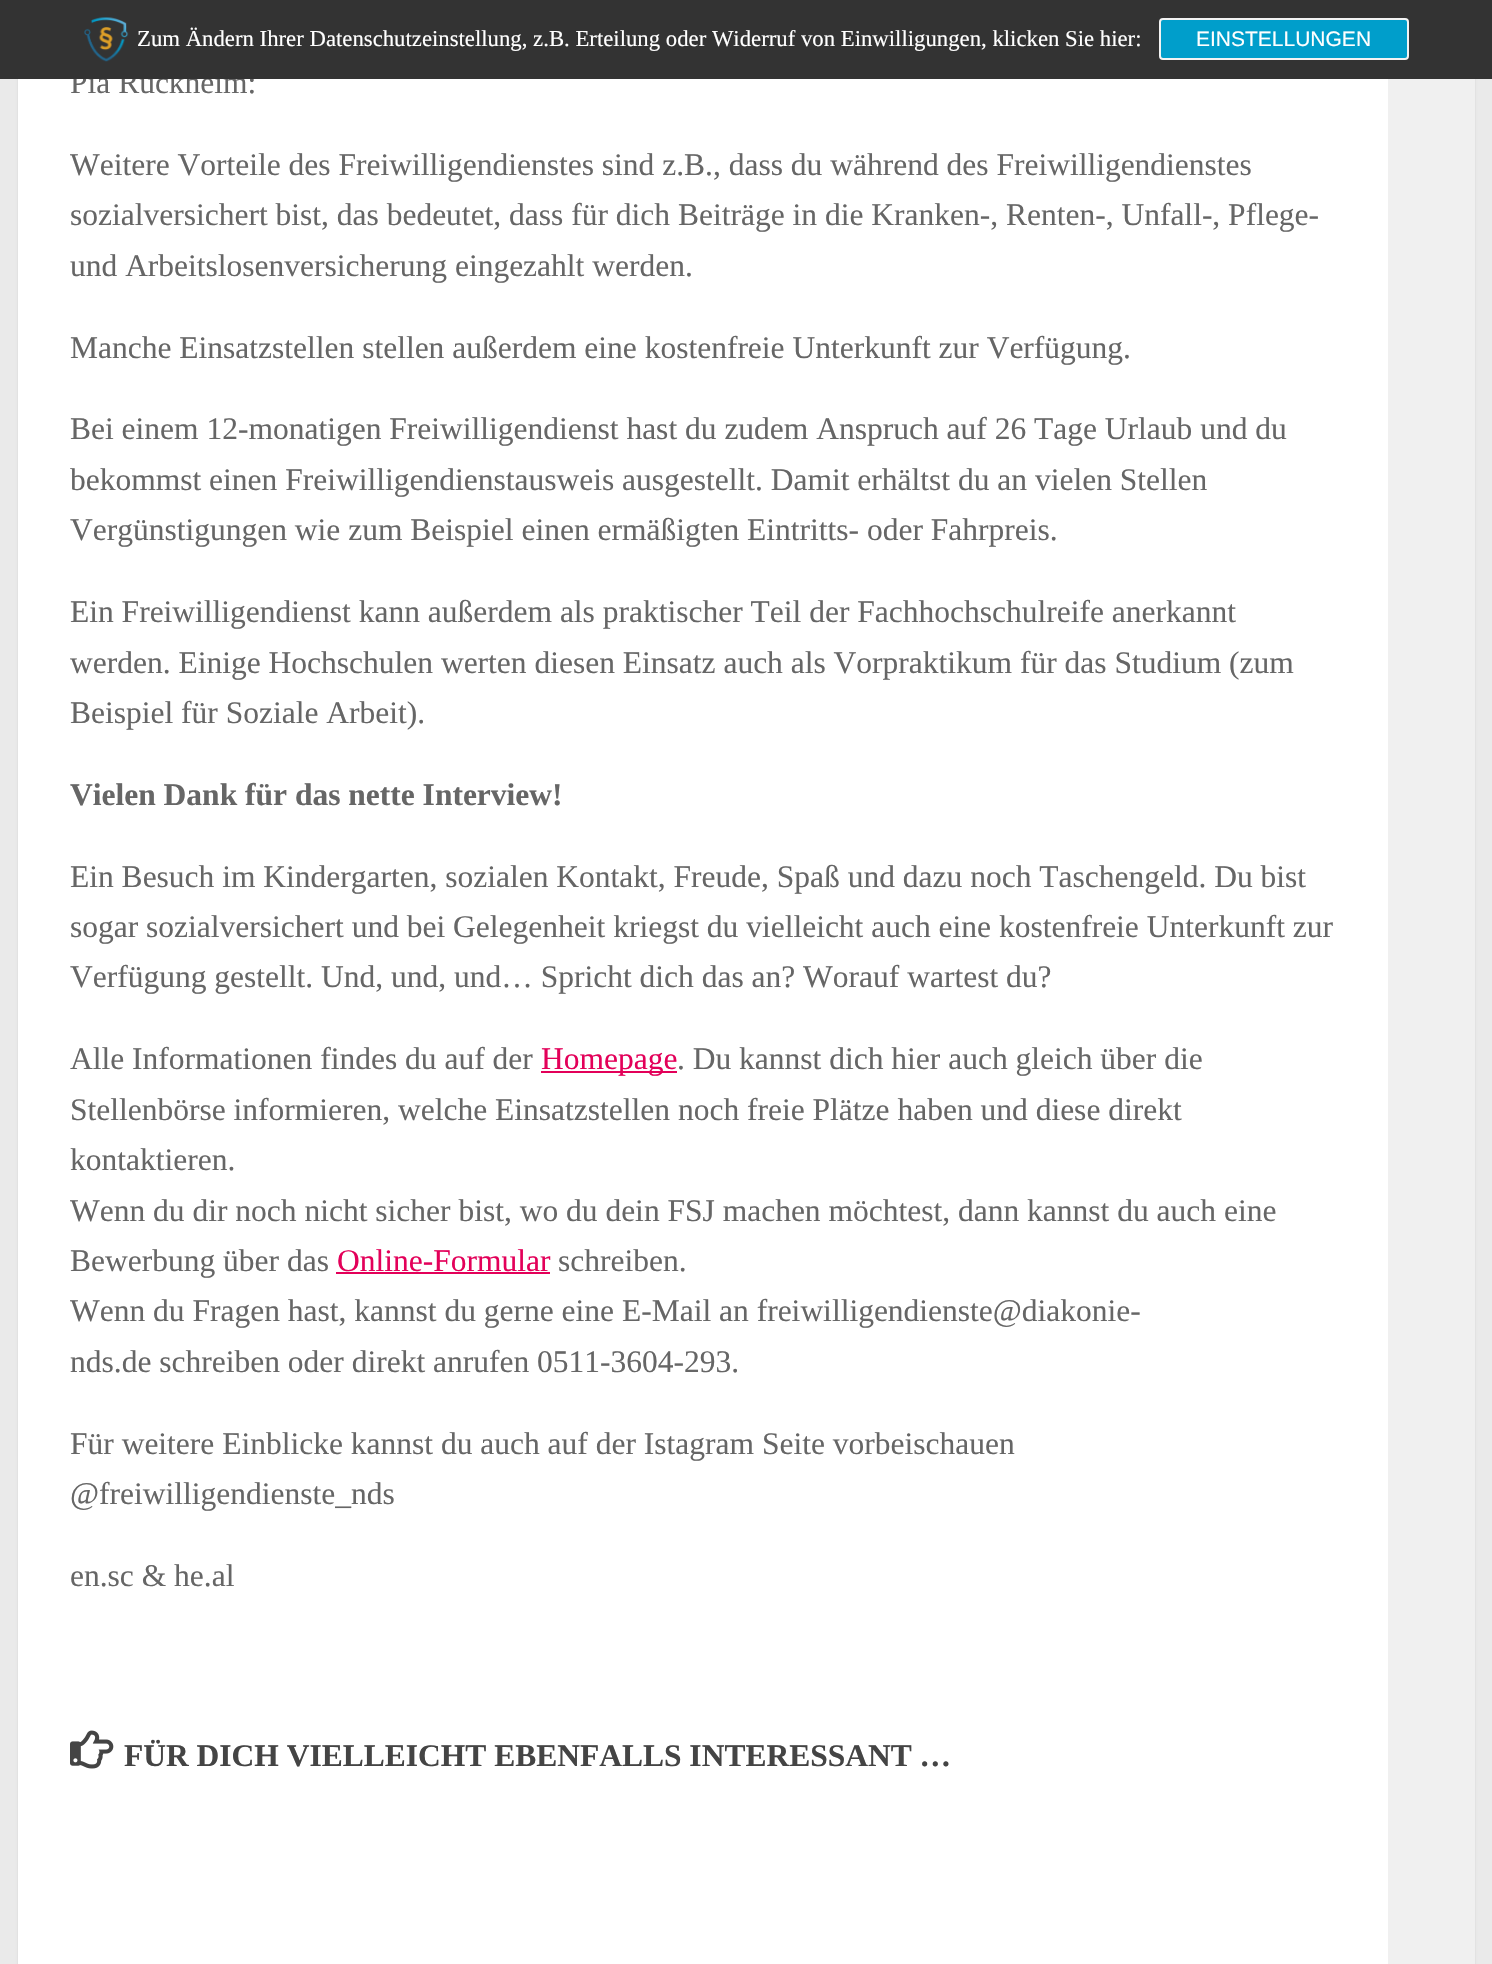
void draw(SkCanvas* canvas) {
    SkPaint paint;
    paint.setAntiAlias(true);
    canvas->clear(0xFFEAEAEA);
    paint.setColor(0x1A000000);
    paint.setMaskFilter(SkMaskFilter::MakeBlur(kNormal_SkBlurStyle, 1));
    canvas->drawRect(SkRect::MakeXYWH(18, -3, 1457, 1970), paint);
    paint.setMaskFilter(nullptr);
    paint.setColor(0xFFFFFFFF);
    canvas->drawRect(SkRect::MakeXYWH(18, 79, 1370, 1885), paint);
    SkFont font1(fontMgr->matchFamilyStyle("Liberation Serif", SkFontStyle::Normal()), 31.5f);
    font1.setSubpixel(true);
    paint.setColor(0xFF666666);
    canvas->drawString("Pia Rückheim:", 70, 93, font1, paint);
    paint.setColor(0xFF333333);
    canvas->drawRect(SkRect::MakeXYWH(0, 0, 1492, 79), paint);
    canvas->drawImageRect(SkImages::DeferredFromEncodedData(SkData::MakeFromFileName("img1.png")), SkRect::MakeXYWH(84, 17, 45, 45), SkSamplingOptions());
    SkFont font2(fontMgr->matchFamilyStyle("Liberation Serif", SkFontStyle::Normal()), 22.75f);
    font2.setSubpixel(true);
    paint.setColor(0xFFFFFFFF);
    canvas->drawString("Zum Ändern Ihrer Datenschutzeinstellung, z.B. Erteilung oder Widerruf von Einwilligungen, klicken Sie hier:", 137, 46, font2, paint);
    paint.setColor(0xFF009ECB);
    canvas->drawRoundRect(SkRect::MakeXYWH(1160, 19, 248, 40), 3, 3, paint);
    paint.setStyle(SkPaint::kStroke_Style);
    paint.setStrokeWidth(2);
    paint.setColor(0xFFF3F3F3);
    canvas->drawRoundRect(SkRect::MakeXYWH(1160, 19, 248, 40), 3, 3, paint);
    SkFont font3(fontMgr->matchFamilyStyle("Liberation Sans", SkFontStyle::Normal()), 21);
    font3.setSubpixel(true);
    paint.setStyle(SkPaint::kFill_Style);
    paint.setColor(0xFFFFFFFF);
    canvas->drawString("EINSTELLUNGEN", 1196, 46, font3, paint);
    paint.setColor(0xFF666666);
    canvas->drawString("Weitere Vorteile des Freiwilligendienstes sind z.B., dass du während des Freiwilligendienstes", 70, 175, font1, paint);
    canvas->drawString("sozialversichert bist, das bedeutet, dass für dich Beiträge in die Kranken-, Renten-, Unfall-, Pflege-", 70, 225, font1, paint);
    canvas->drawString("und Arbeitslosenversicherung eingezahlt werden.", 70, 276, font1, paint);
    canvas->drawString("Manche Einsatzstellen stellen außerdem eine kostenfreie Unterkunft zur Verfügung.", 70, 358, font1, paint);
    canvas->drawString("Bei einem 12-monatigen Freiwilligendienst hast du zudem Anspruch auf 26 Tage Urlaub und du", 70, 439, font1, paint);
    canvas->drawString("bekommst einen Freiwilligendienstausweis ausgestellt. Damit erhältst du an vielen Stellen", 70, 490, font1, paint);
    canvas->drawString("Vergünstigungen wie zum Beispiel einen ermäßigten Eintritts- oder Fahrpreis.", 70, 540, font1, paint);
    canvas->drawString("Ein Freiwilligendienst kann außerdem als praktischer Teil der Fachhochschulreife anerkannt", 70, 622, font1, paint);
    canvas->drawString("werden. Einige Hochschulen werten diesen Einsatz auch als Vorpraktikum für das Studium (zum", 70, 673, font1, paint);
    canvas->drawString("Beispiel für Soziale Arbeit).", 70, 723, font1, paint);
    SkFont font4(fontMgr->matchFamilyStyle("Liberation Serif", SkFontStyle::Bold()), 31.5f);
    font4.setSubpixel(true);
    canvas->drawString("Vielen Dank für das nette Interview!", 70, 805, font4, paint);
    canvas->drawString("Ein Besuch im Kindergarten, sozialen Kontakt, Freude, Spaß und dazu noch Taschengeld. Du bist", 70, 887, font1, paint);
    canvas->drawString("sogar sozialversichert und bei Gelegenheit kriegst du vielleicht auch eine kostenfreie Unterkunft zur", 70, 937, font1, paint);
    canvas->drawString("Verfügung gestellt. Und, und, und… Spricht dich das an? Worauf wartest du?", 70, 987, font1, paint);
    canvas->drawString("Alle Informationen findes du auf der", 70, 1069, font1, paint);
    paint.setColor(0xFFE30059);
    canvas->drawRect(SkRect::MakeXYWH(541, 1071, 136, 2), paint);
    canvas->drawString("Homepage", 541, 1069, font1, paint);
    paint.setColor(0xFF666666);
    canvas->drawString(". Du kannst dich hier auch gleich über die", 677, 1069, font1, paint);
    canvas->drawString("Stellenbörse informieren, welche Einsatzstellen noch freie Plätze haben und diese direkt", 70, 1120, font1, paint);
    canvas->drawString("kontaktieren.", 70, 1170, font1, paint);
    canvas->drawString("Wenn du dir noch nicht sicher bist, wo du dein FSJ machen möchtest, dann kannst du auch eine", 70, 1221, font1, paint);
    canvas->drawString("Bewerbung über das", 70, 1271, font1, paint);
    paint.setColor(0xFFE30059);
    canvas->drawString("Online-Formular", 337, 1271, font1, paint);
    canvas->drawRect(SkRect::MakeXYWH(336, 1272, 214, 2), paint);
    paint.setColor(0xFF666666);
    canvas->drawString("schreiben.", 558, 1271, font1, paint);
    canvas->drawString("Wenn du Fragen hast, kannst du gerne eine E-Mail an freiwilligendienste@diakonie-", 70, 1321, font1, paint);
    canvas->drawString("nds.de schreiben oder direkt anrufen 0511-3604-293.", 70, 1372, font1, paint);
    canvas->drawString("Für weitere Einblicke kannst du auch auf der Istagram Seite vorbeischauen", 70, 1454, font1, paint);
    canvas->drawString("@freiwilligendienste_nds", 70, 1504, font1, paint);
    canvas->drawString("en.sc & he.al", 70, 1586, font1, paint);
    canvas->drawImageRect(SkImages::DeferredFromEncodedData(SkData::MakeFromFileName("img2.png")), SkRect::MakeXYWH(70, 1730, 44, 39), SkSamplingOptions());
    paint.setColor(0xFF444444);
    canvas->drawString("FÜR DICH VIELLEICHT EBENFALLS INTERESSANT …", 124, 1766, font4, paint);
    paint.setColor(0xFFF0F0F0);
    canvas->drawRect(SkRect::MakeXYWH(1388, 79, 87, 1885), paint);
}
